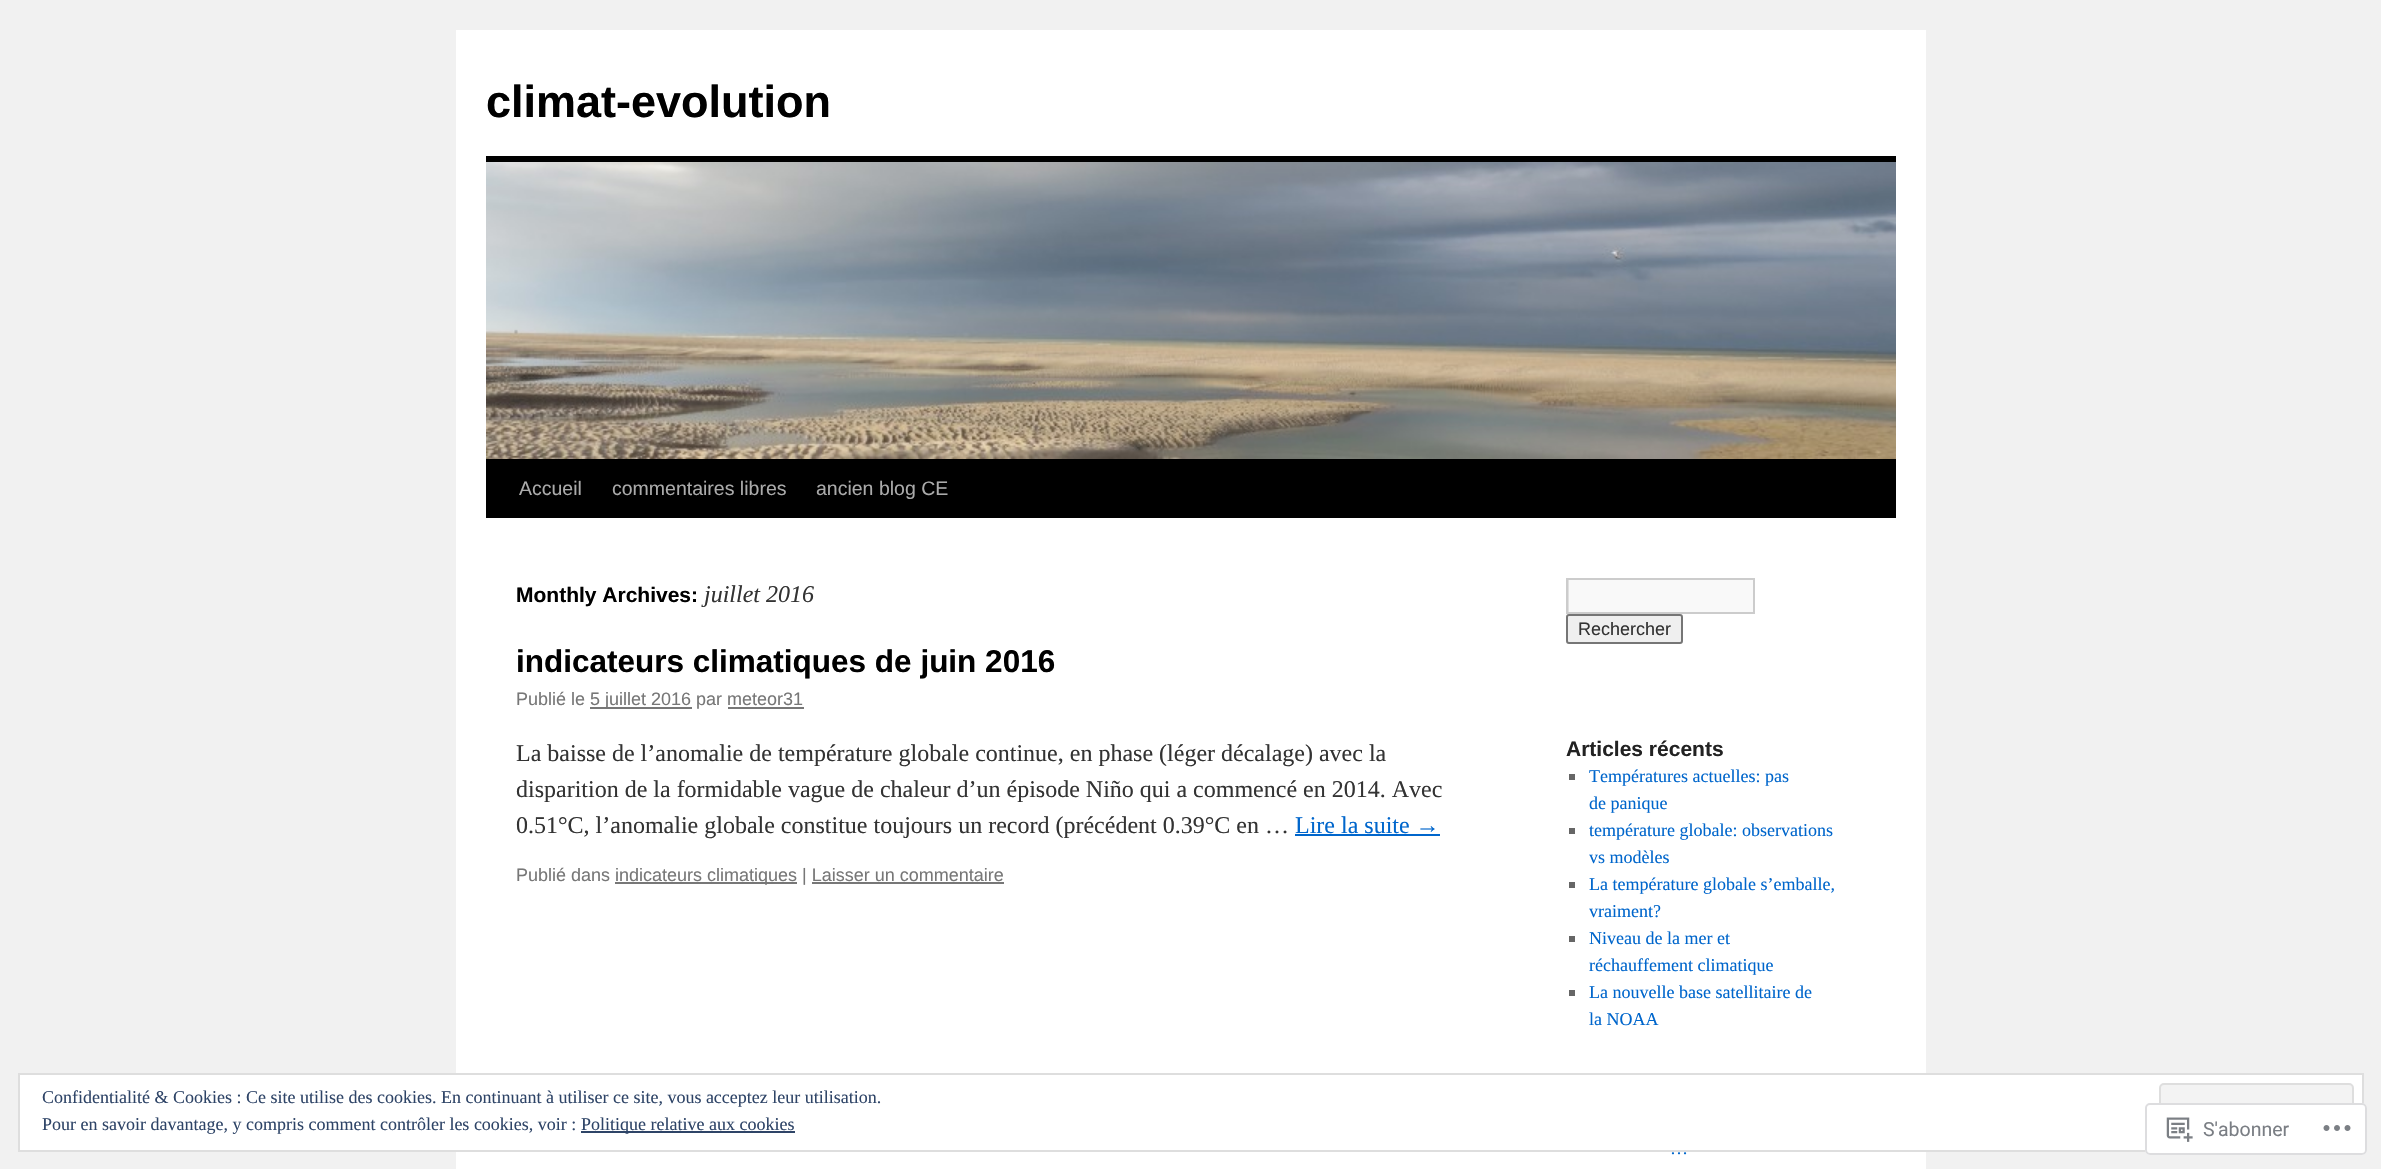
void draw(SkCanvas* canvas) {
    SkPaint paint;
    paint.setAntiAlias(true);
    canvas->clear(0xFFF1F1F1);
    paint.setColor(0xFFFFFFFF);
    canvas->drawRect(SkRect::MakeXYWH(456, 30, 1470, 1139), paint);
    canvas->drawRect(SkRect::MakeXYWH(19, 1074, 2344, 77), paint);
    paint.setStyle(SkPaint::kStroke_Style);
    paint.setStrokeWidth(2);
    paint.setColor(0xFFDEDEDE);
    canvas->drawRect(SkRect::MakeXYWH(19, 1074, 2344, 77), paint);
    SkFont font1(fontMgr->matchFamilyStyle("Liberation Serif", SkFontStyle::Normal()), 18);
    font1.setSubpixel(true);
    paint.setStyle(SkPaint::kFill_Style);
    paint.setColor(0xFF2E4467);
    canvas->drawString("Confidentialité & Cookies : Ce site utilise des cookies. En continuant à utiliser ce site, vous acceptez leur utilisation.", 42, 1103, font1, paint);
    paint.setColor(0xFFF3F3F3);
    canvas->drawRoundRect(SkRect::MakeXYWH(2160, 1084, 193, 57), 4, 4, paint);
    paint.setStyle(SkPaint::kStroke_Style);
    paint.setColor(0xFFDEDEDE);
    canvas->drawRoundRect(SkRect::MakeXYWH(2160, 1084, 193, 57), 4, 4, paint);
    paint.setStyle(SkPaint::kFill_Style);
    paint.setColor(0xFF2E4467);
    canvas->drawString("Pour en savoir davantage, y compris comment contrôler les cookies, voir :", 42, 1130, font1, paint);
    canvas->drawRect(SkRect::MakeXYWH(581, 1131, 214, 2), paint);
    canvas->drawString("Politique relative aux cookies", 581, 1130, font1, paint);
    SkFont font2(fontMgr->matchFamilyStyle("Liberation Sans", SkFontStyle::Bold()), 45);
    font2.setSubpixel(true);
    paint.setColor(0xFF000000);
    canvas->drawString("climat-evolution", 486, 117, font2, paint);
    canvas->drawRect(SkRect::MakeXYWH(486, 156, 1410, 6), paint);
    canvas->drawRect(SkRect::MakeXYWH(486, 459, 1410, 59), paint);
    canvas->drawImageRect(SkImages::DeferredFromEncodedData(SkData::MakeFromFileName("img1.png")), SkRect::MakeXYWH(486, 162, 1410, 297), SkSamplingOptions());
    SkFont font3(fontMgr->matchFamilyStyle("Liberation Sans", SkFontStyle::Normal()), 19.5f);
    font3.setSubpixel(true);
    paint.setColor(0xFFAAAAAA);
    canvas->drawString("Accueil", 519, 495, font3, paint);
    canvas->drawString("commentaires libres", 612, 495, font3, paint);
    canvas->drawString("ancien blog CE", 816, 495, font3, paint);
    SkFont font4(fontMgr->matchFamilyStyle("Liberation Sans", SkFontStyle::Bold()), 21);
    font4.setSubpixel(true);
    paint.setColor(0xFF000000);
    canvas->drawString("Monthly Archives:", 516, 602, font4, paint);
    SkFont font5(fontMgr->matchFamilyStyle("Liberation Serif", SkFontStyle::Italic()), 24);
    font5.setSubpixel(true);
    paint.setColor(0xFF333333);
    canvas->drawString("juillet 2016", 704, 602, font5, paint);
    SkFont font6(fontMgr->matchFamilyStyle("Liberation Sans", SkFontStyle::Bold()), 31.5f);
    font6.setSubpixel(true);
    paint.setColor(0xFF000000);
    canvas->drawString("indicateurs climatiques de juin 2016", 516, 672, font6, paint);
    SkFont font7(fontMgr->matchFamilyStyle("Liberation Sans", SkFontStyle::Normal()), 18);
    font7.setSubpixel(true);
    paint.setColor(0xFF777777);
    canvas->drawString("Publié le", 516, 705, font7, paint);
    canvas->drawRect(SkRect::MakeXYWH(590, 707, 102, 2), paint);
    canvas->drawString("5 juillet 2016 par meteor31", 590, 705, font7, paint);
    canvas->drawRect(SkRect::MakeXYWH(728, 707, 76, 2), paint);
    SkFont font8(fontMgr->matchFamilyStyle("Liberation Serif", SkFontStyle::Normal()), 24);
    font8.setSubpixel(true);
    paint.setColor(0xFF333333);
    canvas->drawString("La baisse de l’anomalie de température globale continue, en phase (léger décalage) avec la", 516, 761, font8, paint);
    canvas->drawString("disparition de la formidable vague de chaleur d’un épisode Niño qui a commencé en 2014. Avec", 516, 797, font8, paint);
    canvas->drawString("0.51°C, l’anomalie globale constitue toujours un record (précédent 0.39°C en …", 516, 833, font8, paint);
    paint.setColor(0xFF0066CC);
    canvas->drawString("Lire la suite →", 1295, 833, font8, paint);
    canvas->drawRect(SkRect::MakeXYWH(1295, 834, 145, 2), paint);
    paint.setColor(0xFF777777);
    canvas->drawString("Publié dans", 516, 881, font7, paint);
    canvas->drawRect(SkRect::MakeXYWH(615, 882, 182, 2), paint);
    canvas->drawString("indicateurs climatiques | Laisser un commentaire", 615, 881, font7, paint);
    canvas->drawRect(SkRect::MakeXYWH(812, 882, 192, 2), paint);
    paint.setColor(0xFFF9F9F9);
    canvas->drawRect(SkRect::MakeXYWH(1569, 580, 184, 32), paint);
    canvas->save();
    canvas->clipRect(SkRect::MakeXYWH(1568, 579, 186, 33));
    paint.setColor(0xFFE0E0E0);
    canvas->drawPath(SkPathBuilder(SkPathFillType::kEvenOdd).moveTo(1419, 430).lineTo(1902, 430).lineTo(1902, 760).lineTo(1419, 760).close().moveTo(1569, 580).lineTo(1755, 580).lineTo(1755, 614).lineTo(1569, 614).close().detach(), paint);
    canvas->restore();
    paint.setStyle(SkPaint::kStroke_Style);
    paint.setColor(0xFFCCCCCC);
    canvas->drawRect(SkRect::MakeXYWH(1567, 579, 187, 34), paint);
    paint.setStyle(SkPaint::kFill_Style);
    paint.setColor(0xFFEFEFEF);
    canvas->drawRoundRect(SkRect::MakeXYWH(1567, 615, 115, 28), 2, 2, paint);
    paint.setStyle(SkPaint::kStroke_Style);
    paint.setColor(0xFF767676);
    canvas->drawRoundRect(SkRect::MakeXYWH(1567, 615, 115, 28), 2, 2, paint);
    paint.setStyle(SkPaint::kFill_Style);
    paint.setColor(0xFF333333);
    canvas->drawString("Rechercher", 1578, 635, font7, paint);
    paint.setColor(0xFF222222);
    canvas->drawString("Articles récents", 1566, 756, font4, paint);
    paint.setColor(0xFF666666);
    canvas->drawRect(SkRect::MakeXYWH(1569, 774, 6, 6), paint);
    paint.setColor(0xFF0066CC);
    canvas->drawString("Températures actuelles: pas", 1589, 782, font1, paint);
    canvas->drawString("de panique", 1589, 809, font1, paint);
    paint.setColor(0xFF666666);
    canvas->drawRect(SkRect::MakeXYWH(1569, 828, 6, 6), paint);
    paint.setColor(0xFF0066CC);
    canvas->drawString("température globale: observations", 1589, 836, font1, paint);
    canvas->drawString("vs modèles", 1589, 863, font1, paint);
    paint.setColor(0xFF666666);
    canvas->drawRect(SkRect::MakeXYWH(1569, 882, 6, 6), paint);
    paint.setColor(0xFF0066CC);
    canvas->drawString("La température globale s’emballe,", 1589, 890, font1, paint);
    canvas->drawString("vraiment?", 1589, 917, font1, paint);
    paint.setColor(0xFF666666);
    canvas->drawRect(SkRect::MakeXYWH(1569, 936, 6, 6), paint);
    paint.setColor(0xFF0066CC);
    canvas->drawString("Niveau de la mer et", 1589, 944, font1, paint);
    canvas->drawString("réchauffement climatique", 1589, 971, font1, paint);
    paint.setColor(0xFF666666);
    canvas->drawRect(SkRect::MakeXYWH(1569, 990, 6, 6), paint);
    paint.setColor(0xFF0066CC);
    canvas->drawString("La nouvelle base satellitaire de", 1589, 998, font1, paint);
    canvas->drawString("la NOAA", 1589, 1025, font1, paint);
    canvas->drawString("…", 1670, 1154, font1, paint);
    paint.setColor(0xFAFFFFFF);
    canvas->drawRoundRect(SkRect::MakeXYWH(2145, 1103, 222, 52), 5, 5, paint);
    paint.setStyle(SkPaint::kStroke_Style);
    paint.setColor(0xFADCDCDE);
    canvas->drawRoundRect(SkRect::MakeXYWH(2146, 1104, 220, 50), 4, 4, paint);
    canvas->drawImageRect(SkImages::DeferredFromEncodedData(SkData::MakeFromFileName("img2.png")), SkRect::MakeXYWH(2166, 1117, 27, 25), SkSamplingOptions());
    SkFont font9(fontMgr->matchFamilyStyle("Roboto", SkFontStyle::Normal()), 19.5f);
    font9.setSubpixel(true);
    paint.setStyle(SkPaint::kFill_Style);
    paint.setColor(0xFF7A7E84);
    canvas->drawString("S'abonner", 2203, 1136, font9, paint);
    canvas->drawImageRect(SkImages::DeferredFromEncodedData(SkData::MakeFromFileName("img3.png")), SkRect::MakeXYWH(2323, 1125, 28, 6), SkSamplingOptions());
}
